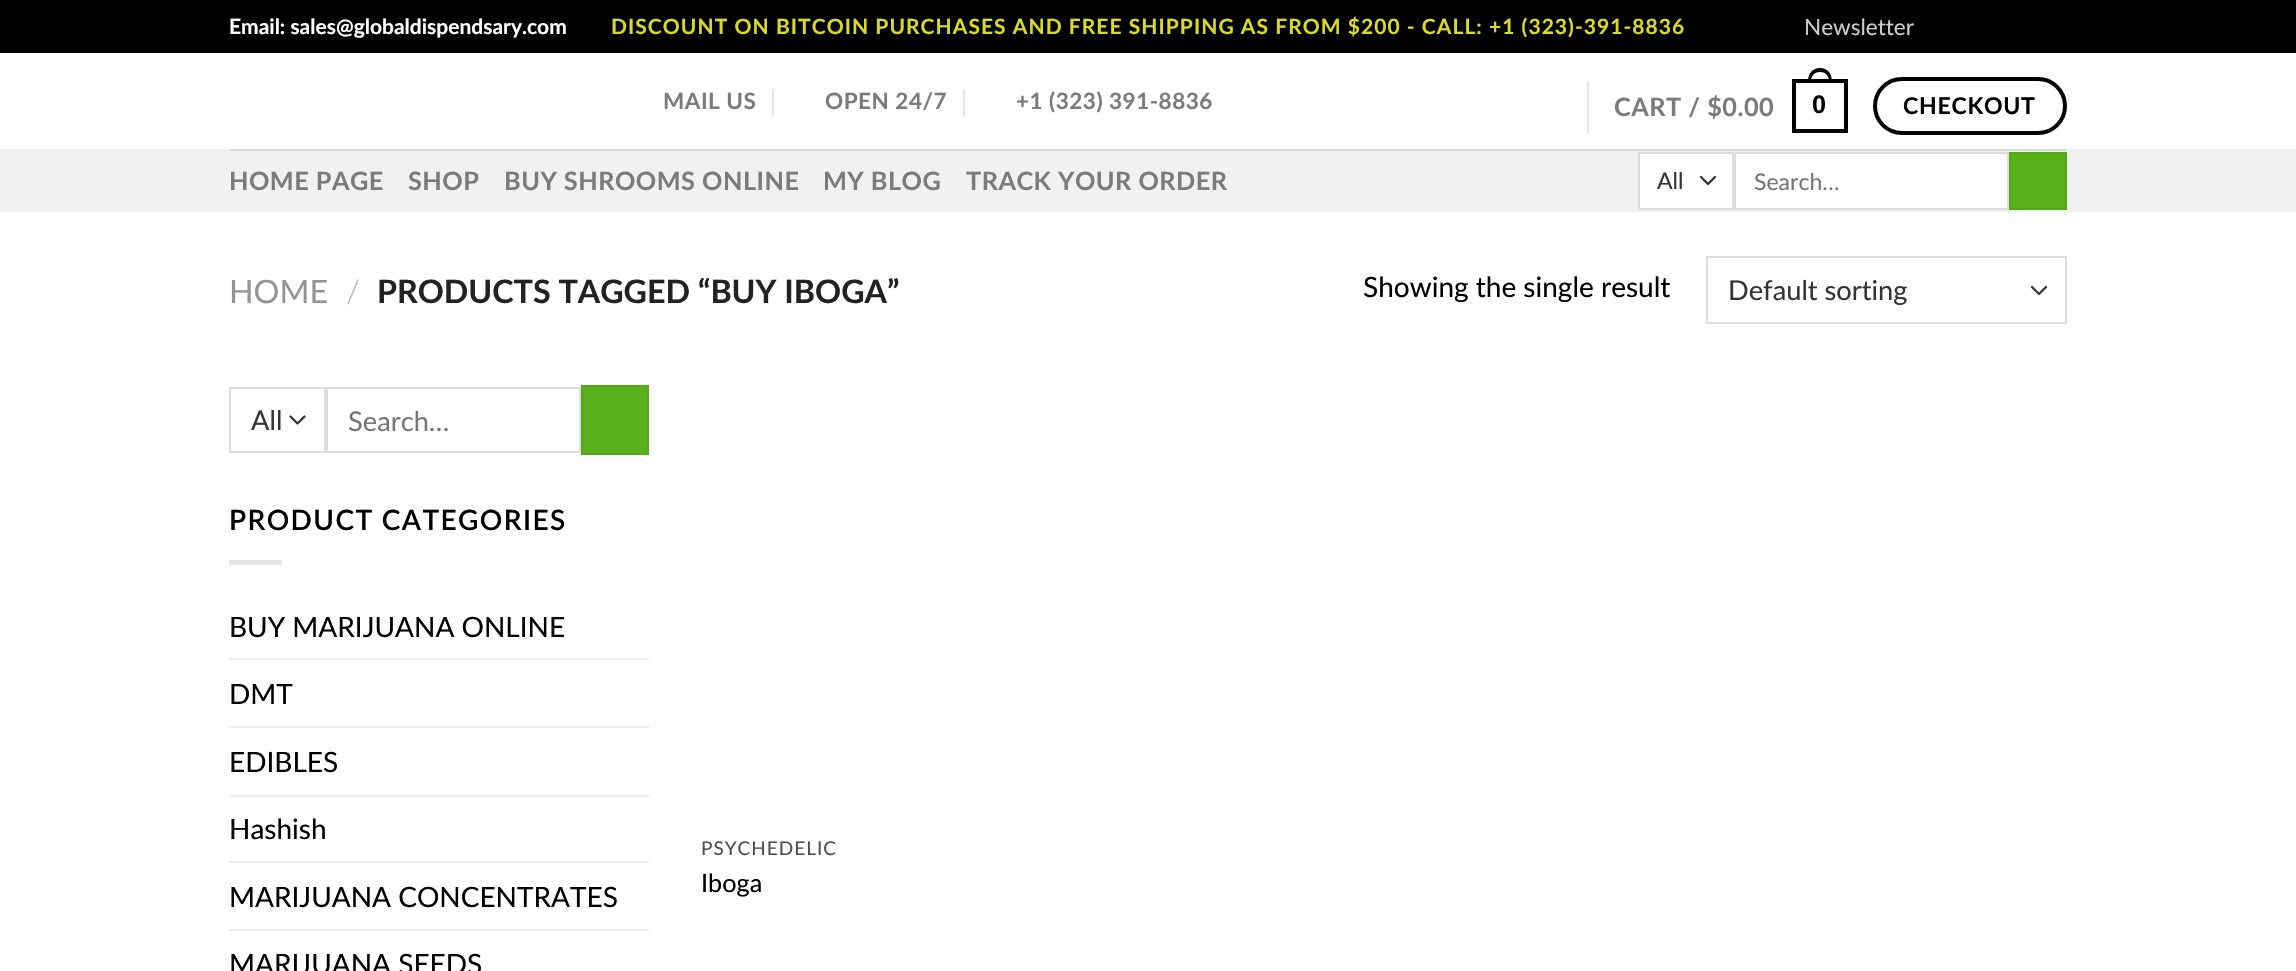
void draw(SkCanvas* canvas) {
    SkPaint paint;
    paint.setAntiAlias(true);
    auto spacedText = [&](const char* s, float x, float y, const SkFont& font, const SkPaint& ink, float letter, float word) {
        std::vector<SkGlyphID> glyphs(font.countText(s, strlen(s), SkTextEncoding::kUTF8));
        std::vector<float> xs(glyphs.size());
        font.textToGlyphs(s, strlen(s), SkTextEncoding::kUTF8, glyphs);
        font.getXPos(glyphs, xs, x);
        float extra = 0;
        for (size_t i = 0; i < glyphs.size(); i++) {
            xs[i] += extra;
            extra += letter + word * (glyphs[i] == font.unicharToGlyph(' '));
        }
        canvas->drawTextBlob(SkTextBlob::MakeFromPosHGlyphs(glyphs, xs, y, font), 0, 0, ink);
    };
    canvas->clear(0xFFFFFFFF);
    paint.setColor(0xFF000000);
    canvas->drawRect(SkRect::MakeXYWH(0, 0, 2296, 53), paint);
    SkFont font1(fontMgr->matchFamilyStyle("Lato", SkFontStyle::Bold()), 21);
    font1.setSubpixel(true);
    paint.setColor(0xFFFFFFFF);
    canvas->drawString("Email: sales@globaldispendsary.com", 229, 34, font1, paint);
    paint.setColor(0xFFD9D92A);
    spacedText("DISCOUNT ON BITCOIN PURCHASES AND FREE SHIPPING AS FROM $200 - CALL: +1 (323)-391-8836", 611, 34, font1, paint, 1.05f, 0);
    SkFont font2(fontMgr->matchFamilyStyle("Lato", SkFontStyle::Normal()), 22.5f);
    font2.setSubpixel(true);
    paint.setColor(0xFFCCCCCC);
    canvas->drawString("Newsletter", 1804, 35, font2, paint);
    SkFont font3(fontMgr->matchFamilyStyle("Lato", SkFontStyle::Bold()), 22.5f);
    font3.setSubpixel(true);
    paint.setColor(0xFF7B7B7B);
    spacedText("MAIL US", 663, 109, font3, paint, 0.5f, 0);
    paint.setColor(0xFFE6E6E6);
    canvas->drawRect(SkRect::MakeXYWH(772, 89, 2, 27), paint);
    paint.setColor(0xFF7B7B7B);
    spacedText("OPEN 24/7", 825, 109, font3, paint, 0.5f, 0);
    paint.setColor(0xFFE6E6E6);
    canvas->drawRect(SkRect::MakeXYWH(963, 89, 2, 27), paint);
    paint.setColor(0xFF7B7B7B);
    spacedText("+1 (323) 391-8836", 1016, 109, font3, paint, 0.5f, 0);
    paint.setColor(0xFFE6E6E6);
    canvas->drawRect(SkRect::MakeXYWH(1587, 81, 2, 52), paint);
    SkFont font4(fontMgr->matchFamilyStyle("Lato", SkFontStyle::Bold()), 25.25f);
    font4.setSubpixel(true);
    paint.setColor(0xFF7B7B7B);
    spacedText("CART / $0.00", 1614, 116, font4, paint, 0.5f, 0);
    paint.setStyle(SkPaint::kStroke_Style);
    paint.setStrokeWidth(4);
    paint.setColor(0xFF000000);
    canvas->drawRect(SkRect::MakeXYWH(1794, 81, 52, 50), paint);
    paint.setStyle(SkPaint::kFill_Style);
    canvas->drawPath(SkPathBuilder(SkPathFillType::kEvenOdd).moveTo(1820, 68).cubicTo(1828.5f, 68, 1832, 74.5f, 1832, 82).lineTo(1808, 82).cubicTo(1808, 74.5f, 1811.5f, 68, 1820, 68).close().moveTo(1820, 72).cubicTo(1826.5f, 72, 1829, 76.5f, 1829, 82).lineTo(1811, 82).cubicTo(1811, 76.5f, 1813.5f, 72, 1820, 72).close().detach(), paint);
    SkFont font5(fontMgr->matchFamilyStyle("Liberation Sans", SkFontStyle::Bold()), 25.25f);
    font5.setSubpixel(true);
    spacedText("0", 1812, 113, font5, paint, 0.5f, 0);
    paint.setStyle(SkPaint::kStroke_Style);
    canvas->drawRoundRect(SkRect::MakeXYWH(1875, 79, 190, 54), 27, 27, paint);
    SkFont font6(fontMgr->matchFamilyStyle("Lato", SkFontStyle::Bold()), 23);
    font6.setSubpixel(true);
    paint.setStyle(SkPaint::kFill_Style);
    spacedText("CHECKOUT", 1903, 114, font6, paint, 0.75f, 0);
    paint.setColor(0xFFF1F1F1);
    canvas->drawRect(SkRect::MakeXYWH(0, 149, 2296, 63), paint);
    paint.setColor(0xFFD9D9D9);
    canvas->drawRect(SkRect::MakeXYWH(229, 149, 1838, 2), paint);
    paint.setColor(0xFF7B7B7B);
    spacedText("HOME PAGE", 229, 190, font4, paint, 0.5f, 0);
    spacedText("SHOP", 408, 190, font4, paint, 0.5f, 0);
    spacedText("BUY SHROOMS ONLINE", 504, 190, font4, paint, 0.5f, 0);
    spacedText("MY BLOG", 823, 190, font4, paint, 0.5f, 0);
    spacedText("TRACK YOUR ORDER", 966, 190, font4, paint, 0.5f, 0);
    paint.setColor(0xFFFFFFFF);
    canvas->drawRect(SkRect::MakeXYWH(1640, 154, 92, 54), paint);
    paint.setStyle(SkPaint::kStroke_Style);
    paint.setStrokeWidth(2.3f);
    paint.setStrokeCap(SkPaint::kRound_Cap);
    paint.setStrokeJoin(SkPaint::kRound_Join);
    paint.setColor(0xFF333333);
    canvas->drawPath(SkPathBuilder().moveTo(1701, 177).lineTo(1708, 184).lineTo(1715, 177).detach(), paint);
    paint.setStrokeWidth(2);
    paint.setStrokeCap(SkPaint::kButt_Cap);
    paint.setStrokeJoin(SkPaint::kMiter_Join);
    paint.setColor(0xFFDDDDDD);
    canvas->drawRect(SkRect::MakeXYWH(1639, 153, 94, 56), paint);
    SkFont font7(fontMgr->matchFamilyStyle("Lato", SkFontStyle::Normal()), 23);
    font7.setSubpixel(true);
    paint.setStyle(SkPaint::kFill_Style);
    paint.setColor(0xFF333333);
    canvas->drawString("All", 1657, 189, font7, paint);
    paint.setColor(0xFFFFFFFF);
    canvas->drawRect(SkRect::MakeXYWH(1735, 153, 273, 56), paint);
    paint.setStyle(SkPaint::kStroke_Style);
    paint.setColor(0xFFDDDDDD);
    canvas->drawRect(SkRect::MakeXYWH(1735, 153, 273, 56), paint);
    paint.setStyle(SkPaint::kFill_Style);
    paint.setColor(0xFF757575);
    canvas->drawString("Search…", 1754, 190, font7, paint);
    paint.setColor(0xFF59B01B);
    canvas->drawRect(SkRect::MakeXYWH(2010, 153, 56, 56), paint);
    paint.setStyle(SkPaint::kStroke_Style);
    paint.setColor(0xFF55A71A);
    canvas->drawRect(SkRect::MakeXYWH(2010, 153, 56, 56), paint);
    SkFont font8(fontMgr->matchFamilyStyle("Lato", SkFontStyle::Normal()), 32.25f);
    font8.setSubpixel(true);
    paint.setStyle(SkPaint::kFill_Style);
    paint.setColor(0xFF949494);
    canvas->drawString("HOME", 229, 303, font8, paint);
    SkFont font9(fontMgr->matchFamilyStyle("Lato", SkFontStyle(300, SkFontStyle::kNormal_Width, SkFontStyle::kUpright_Slant)), 32.25f);
    font9.setSubpixel(true);
    paint.setColor(0xFFB2B2B2);
    canvas->drawString("/", 346, 303, font9, paint);
    SkFont font10(fontMgr->matchFamilyStyle("Lato", SkFontStyle::Bold()), 32.25f);
    font10.setSubpixel(true);
    paint.setColor(0xFF222222);
    canvas->drawString("PRODUCTS TAGGED “BUY IBOGA”", 377, 303, font10, paint);
    SkFont font11(fontMgr->matchFamilyStyle("Lato", SkFontStyle::Normal()), 28);
    font11.setSubpixel(true);
    paint.setColor(0xFF000000);
    canvas->drawString("Showing the single result", 1363, 297, font11, paint);
    paint.setStyle(SkPaint::kStroke_Style);
    paint.setStrokeWidth(2.3f);
    paint.setStrokeCap(SkPaint::kRound_Cap);
    paint.setStrokeJoin(SkPaint::kRound_Join);
    paint.setColor(0xFF333333);
    canvas->drawPath(SkPathBuilder().moveTo(2032, 287).lineTo(2039, 294).lineTo(2046, 287).detach(), paint);
    paint.setStrokeWidth(2);
    paint.setStrokeCap(SkPaint::kButt_Cap);
    paint.setStrokeJoin(SkPaint::kMiter_Join);
    paint.setColor(0xFFDDDDDD);
    canvas->drawRect(SkRect::MakeXYWH(1707, 257, 359, 66), paint);
    SkFont font12(fontMgr->matchFamilyStyle("Lato", SkFontStyle::Normal()), 27.25f);
    font12.setSubpixel(true);
    paint.setStyle(SkPaint::kFill_Style);
    paint.setColor(0xFF333333);
    canvas->drawString("Default sorting", 1728, 300, font12, paint);
    paint.setStyle(SkPaint::kStroke_Style);
    paint.setStrokeWidth(2.3f);
    paint.setStrokeCap(SkPaint::kRound_Cap);
    paint.setStrokeJoin(SkPaint::kRound_Join);
    canvas->drawPath(SkPathBuilder().moveTo(290.5f, 416.5f).lineTo(297.5f, 423.5f).lineTo(304.5f, 416.5f).detach(), paint);
    paint.setStrokeWidth(2);
    paint.setStrokeCap(SkPaint::kButt_Cap);
    paint.setStrokeJoin(SkPaint::kMiter_Join);
    paint.setColor(0xFFDDDDDD);
    canvas->drawRect(SkRect::MakeXYWH(230, 388, 95, 64), paint);
    paint.setStyle(SkPaint::kFill_Style);
    paint.setColor(0xFF333333);
    canvas->drawString("All", 251, 430, font12, paint);
    paint.setStyle(SkPaint::kStroke_Style);
    paint.setColor(0xFFDDDDDD);
    canvas->drawRect(SkRect::MakeXYWH(327, 388, 253, 64), paint);
    paint.setStyle(SkPaint::kFill_Style);
    paint.setColor(0xFF757575);
    canvas->drawString("Search…", 348, 431, font12, paint);
    paint.setColor(0xFF59B01B);
    canvas->drawRect(SkRect::MakeXYWH(582, 386, 66, 68), paint);
    paint.setStyle(SkPaint::kStroke_Style);
    paint.setColor(0xFF55A71A);
    canvas->drawRect(SkRect::MakeXYWH(582, 386, 66, 68), paint);
    SkFont font13(fontMgr->matchFamilyStyle("Lato", SkFontStyle(600, SkFontStyle::kNormal_Width, SkFontStyle::kUpright_Slant)), 28);
    font13.setSubpixel(true);
    paint.setStyle(SkPaint::kFill_Style);
    paint.setColor(0xFF000000);
    spacedText("PRODUCT CATEGORIES", 229, 530, font13, paint, 1.4f, 0);
    paint.setColor(0xFFE6E6E6);
    canvas->drawRect(SkRect::MakeXYWH(229, 560, 53, 5), paint);
    paint.setColor(0xFF000000);
    canvas->drawString("BUY MARIJUANA ONLINE", 229, 637, font11, paint);
    paint.setColor(0xFFECECEC);
    canvas->drawRect(SkRect::MakeXYWH(229, 658, 420, 2), paint);
    paint.setColor(0xFF000000);
    canvas->drawString("DMT", 229, 704, font11, paint);
    paint.setColor(0xFFECECEC);
    canvas->drawRect(SkRect::MakeXYWH(229, 726, 420, 2), paint);
    paint.setColor(0xFF000000);
    canvas->drawString("EDIBLES", 229, 772, font11, paint);
    paint.setColor(0xFFECECEC);
    canvas->drawRect(SkRect::MakeXYWH(229, 795, 420, 2), paint);
    paint.setColor(0xFF000000);
    canvas->drawString("Hashish", 229, 839, font11, paint);
    paint.setColor(0xFFECECEC);
    canvas->drawRect(SkRect::MakeXYWH(229, 861, 420, 2), paint);
    paint.setColor(0xFF000000);
    canvas->drawString("MARIJUANA CONCENTRATES", 229, 907, font11, paint);
    paint.setColor(0xFFECECEC);
    canvas->drawRect(SkRect::MakeXYWH(229, 929, 420, 2), paint);
    paint.setColor(0xFF000000);
    canvas->drawString("MARIJUANA SEEDS", 229, 974, font11, paint);
    SkFont font14(fontMgr->matchFamilyStyle("Lato", SkFontStyle::Normal()), 19);
    font14.setSubpixel(true);
    paint.setColor(0xFF4D4D4D);
    spacedText("PSYCHEDELIC", 701, 855, font14, paint, 1, 0);
    SkFont font15(fontMgr->matchFamilyStyle("Lato", SkFontStyle::Normal()), 25.25f);
    font15.setSubpixel(true);
    paint.setColor(0xFF000000);
    canvas->drawString("Iboga", 701, 892, font15, paint);
}
